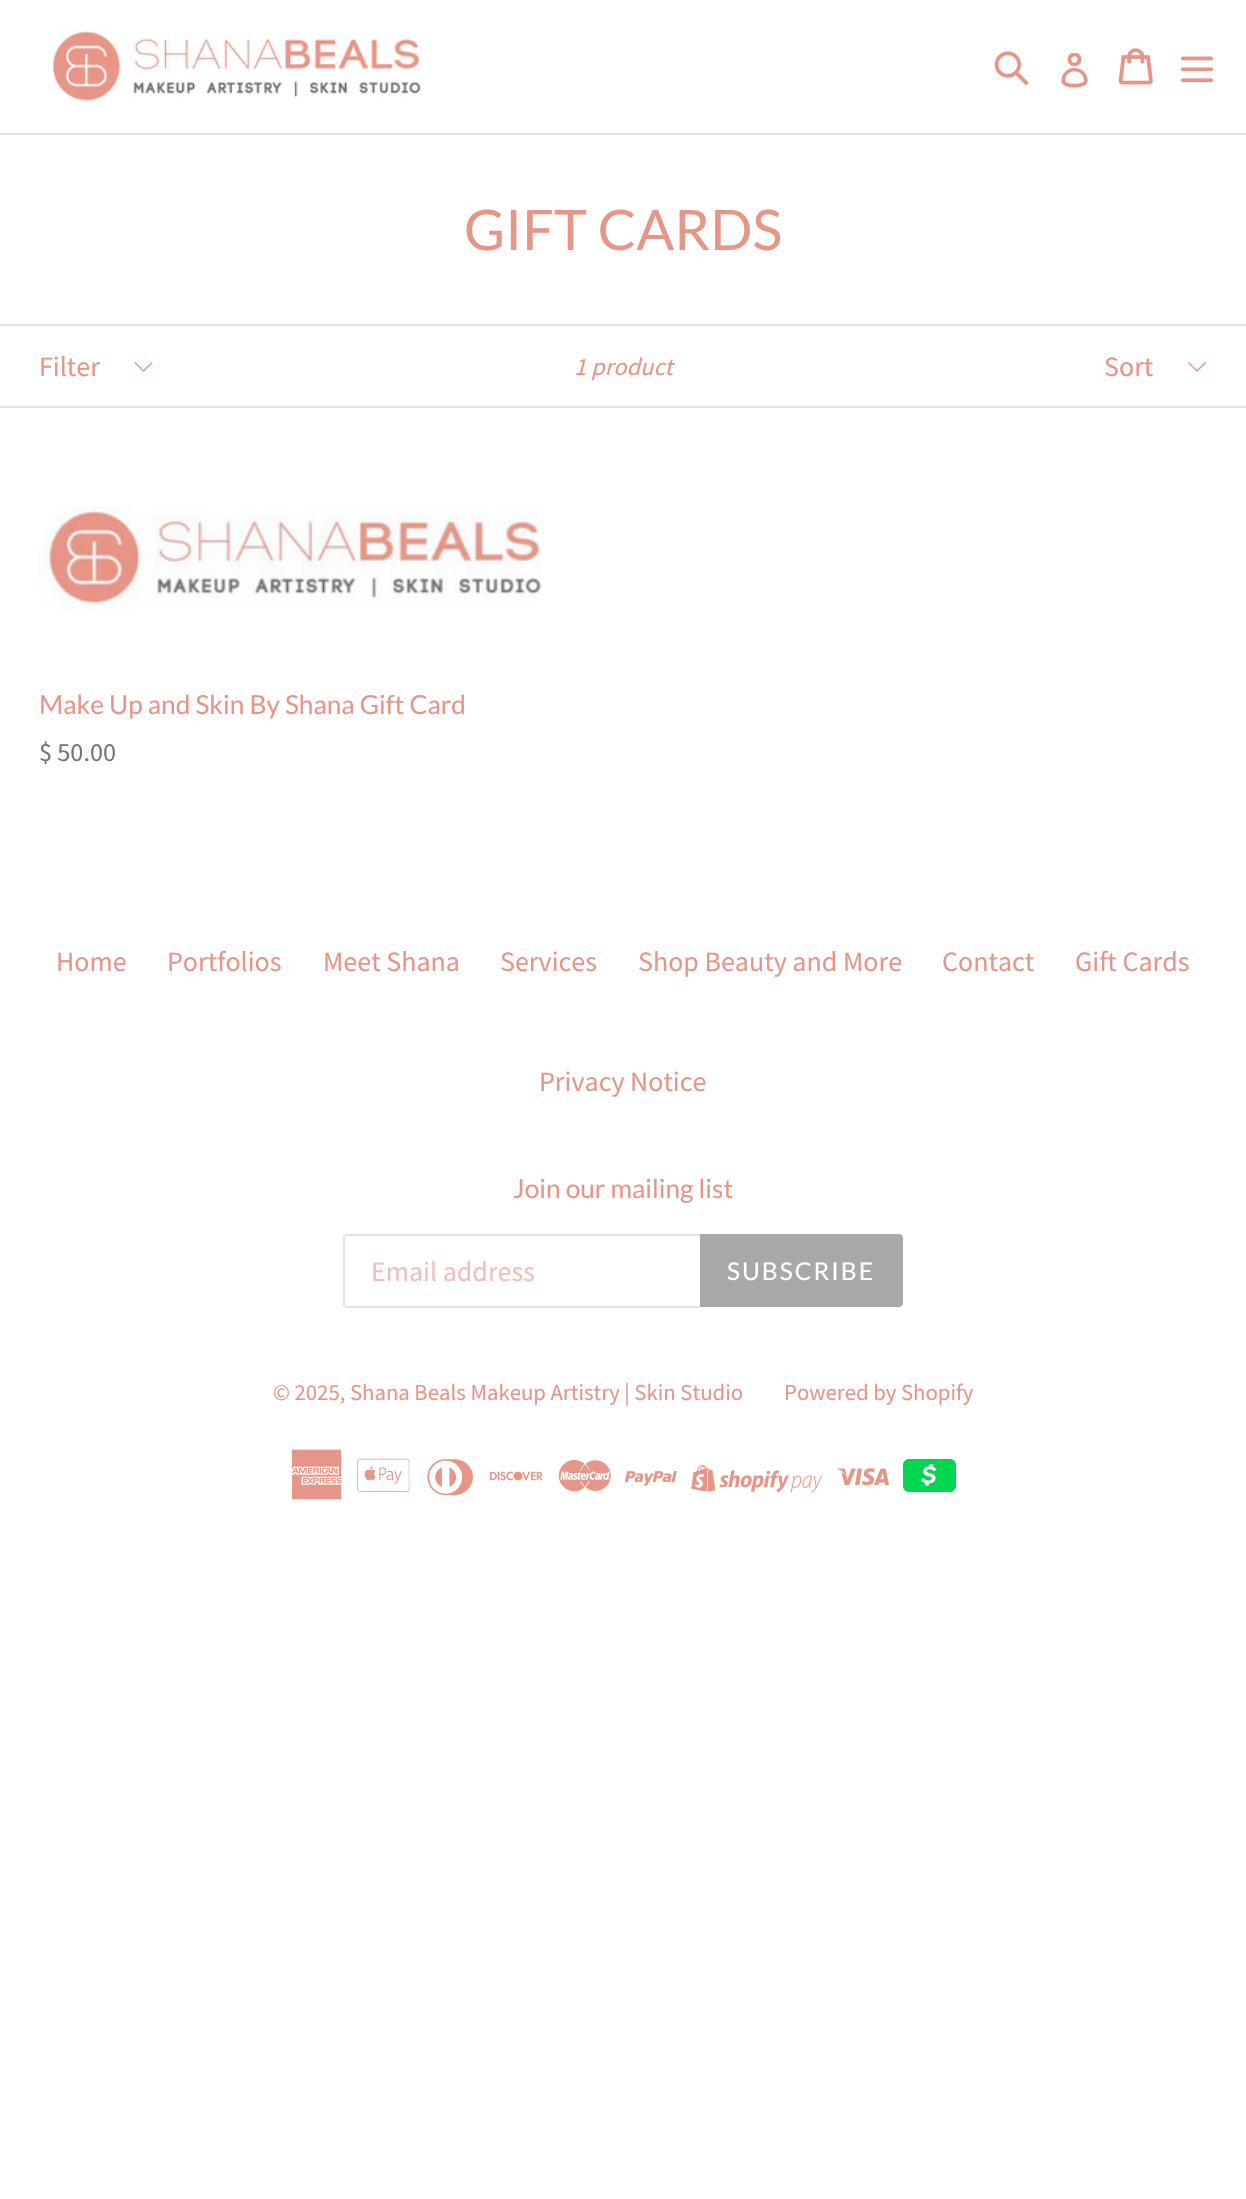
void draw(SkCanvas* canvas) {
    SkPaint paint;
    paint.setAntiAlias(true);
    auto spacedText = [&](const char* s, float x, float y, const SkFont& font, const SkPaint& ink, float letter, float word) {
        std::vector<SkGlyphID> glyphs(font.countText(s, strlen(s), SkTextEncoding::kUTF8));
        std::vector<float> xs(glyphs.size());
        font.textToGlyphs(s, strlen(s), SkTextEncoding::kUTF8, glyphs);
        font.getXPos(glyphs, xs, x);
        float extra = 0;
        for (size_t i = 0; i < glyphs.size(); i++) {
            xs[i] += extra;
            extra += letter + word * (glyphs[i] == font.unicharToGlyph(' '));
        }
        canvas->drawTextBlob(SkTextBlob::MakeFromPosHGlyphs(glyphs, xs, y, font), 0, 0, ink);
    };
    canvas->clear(0xFFFFFFFF);
    paint.setColor(0xFFE4E4E4);
    canvas->drawRect(SkRect::MakeXYWH(0, 133, 1246, 2), paint);
    canvas->drawImageRect(SkImages::DeferredFromEncodedData(SkData::MakeFromFileName("img1.png")), SkRect::MakeXYWH(52, 26, 370, 77), SkSamplingOptions());
    canvas->drawImageRect(SkImages::DeferredFromEncodedData(SkData::MakeFromFileName("img2.png")), SkRect::MakeXYWH(994, 51, 35, 34), SkSamplingOptions());
    canvas->drawImageRect(SkImages::DeferredFromEncodedData(SkData::MakeFromFileName("img3.png")), SkRect::MakeXYWH(1061, 53, 27, 35), SkSamplingOptions());
    canvas->drawImageRect(SkImages::DeferredFromEncodedData(SkData::MakeFromFileName("img4.png")), SkRect::MakeXYWH(1118, 48, 35, 37), SkSamplingOptions());
    canvas->drawImageRect(SkImages::DeferredFromEncodedData(SkData::MakeFromFileName("img5.png")), SkRect::MakeXYWH(1180, 56, 33, 27), SkSamplingOptions());
    SkFont font1(fontMgr->matchFamilyStyle("Lato", SkFontStyle::Normal()), 56);
    font1.setSubpixel(true);
    paint.setColor(0xFFE69688);
    canvas->drawString("GIFT CARDS", 464, 250, font1, paint);
    paint.setColor(0xFFE4E4E4);
    canvas->drawRect(SkRect::MakeXYWH(0, 324, 1246, 2), paint);
    canvas->drawRect(SkRect::MakeXYWH(0, 406, 1246, 2), paint);
    paint.setColor(0xFFE69688);
    canvas->drawPath(SkPathBuilder().moveTo(143.5f, 372).lineTo(134.5f, 363).lineTo(135.5f, 362).lineTo(143.5f, 370).lineTo(151.5f, 362).lineTo(152.5f, 363).close().detach(), paint);
    SkFont font2(fontMgr->matchFamilyStyle("Source Sans Pro", SkFontStyle::Normal()), 28);
    font2.setSubpixel(true);
    canvas->drawString("Filter", 39, 376, font2, paint);
    SkFont font3(fontMgr->matchFamilyStyle("Source Sans Pro", SkFontStyle::Italic()), 24.5f);
    font3.setSubpixel(true);
    canvas->drawString("1 product", 574, 375, font3, paint);
    canvas->drawPath(SkPathBuilder().moveTo(1197, 372).lineTo(1188, 363).lineTo(1189, 362).lineTo(1197, 370).lineTo(1205, 362).lineTo(1206, 363).close().detach(), paint);
    canvas->drawString("Sort", 1104, 376, font2, paint);
    canvas->drawImageRect(SkImages::DeferredFromEncodedData(SkData::MakeFromFileName("img6.png")), SkRect::MakeXYWH(38, 506, 504, 104), SkSamplingOptions());
    SkFont font4(fontMgr->matchFamilyStyle("Lato", SkFontStyle::Normal()), 26.25f);
    font4.setSubpixel(true);
    canvas->drawString("Make Up and Skin By Shana Gift Card", 39, 714, font4, paint);
    SkFont font5(fontMgr->matchFamilyStyle("Source Sans Pro", SkFontStyle::Normal()), 26.25f);
    font5.setSubpixel(true);
    paint.setColor(0xFF757575);
    canvas->drawString("$ 50.00", 39, 761, font5, paint);
    paint.setColor(0xFFE69688);
    canvas->drawString("Home", 56, 971, font2, paint);
    canvas->drawString("Portfolios", 167, 971, font2, paint);
    canvas->drawString("Meet Shana", 323, 971, font2, paint);
    canvas->drawString("Services", 500, 971, font2, paint);
    canvas->drawString("Shop Beauty and More", 638, 971, font2, paint);
    canvas->drawString("Contact", 942, 971, font2, paint);
    canvas->drawString("Gift Cards", 1075, 971, font2, paint);
    canvas->drawString("Privacy Notice", 539, 1091, font2, paint);
    canvas->drawString("Join our mailing list", 513, 1198, font4, paint);
    paint.setColor(0xFFE4E4E4);
    canvas->drawRect(SkRect::MakeXYWH(345, 1234, 355, 2), paint);
    canvas->drawRect(SkRect::MakeXYWH(345, 1306, 355, 2), paint);
    canvas->drawRect(SkRect::MakeXYWH(343, 1236, 2, 70), paint);
    paint.setColor(0xFFF0C0B8);
    canvas->drawString("Email address", 371, 1281, font2, paint);
    paint.setColor(0xFFA8A8A8);
    canvas->drawPath(SkPathBuilder().moveTo(700, 1234).lineTo(899, 1234).cubicTo(901, 1234, 903, 1236, 903, 1238).lineTo(903, 1303).cubicTo(903, 1305, 901, 1307, 899, 1307).lineTo(700, 1307).close().detach(), paint);
    SkFont font6(fontMgr->matchFamilyStyle("Lato", SkFontStyle::Normal()), 24.5f);
    font6.setSubpixel(true);
    paint.setColor(0xFFFFFFFF);
    spacedText("SUBSCRIBE", 727, 1280, font6, paint, 2, 0);
    SkFont font7(fontMgr->matchFamilyStyle("Source Sans Pro", SkFontStyle::Normal()), 22.75f);
    font7.setSubpixel(true);
    paint.setColor(0xFFE69688);
    canvas->drawString("© 2025, Shana Beals Makeup Artistry | Skin Studio", 273, 1400, font7, paint);
    canvas->drawString("Powered by Shopify", 784, 1400, font7, paint);
    canvas->drawImageRect(SkImages::DeferredFromEncodedData(SkData::MakeFromFileName("img7.png")), SkRect::MakeXYWH(292, 1449, 50, 51), SkSamplingOptions());
    canvas->drawImageRect(SkImages::DeferredFromEncodedData(SkData::MakeFromFileName("img8.png")), SkRect::MakeXYWH(357, 1458, 53, 34), SkSamplingOptions());
    canvas->drawImageRect(SkImages::DeferredFromEncodedData(SkData::MakeFromFileName("img9.png")), SkRect::MakeXYWH(427, 1459, 46, 37), SkSamplingOptions());
    canvas->drawImageRect(SkImages::DeferredFromEncodedData(SkData::MakeFromFileName("img10.png")), SkRect::MakeXYWH(490, 1471, 53, 10), SkSamplingOptions());
    canvas->drawImageRect(SkImages::DeferredFromEncodedData(SkData::MakeFromFileName("img11.png")), SkRect::MakeXYWH(558, 1460, 53, 32), SkSamplingOptions());
    canvas->drawImageRect(SkImages::DeferredFromEncodedData(SkData::MakeFromFileName("img12.png")), SkRect::MakeXYWH(625, 1471, 52, 15), SkSamplingOptions());
    canvas->drawImageRect(SkImages::DeferredFromEncodedData(SkData::MakeFromFileName("img13.png")), SkRect::MakeXYWH(691, 1465, 132, 28), SkSamplingOptions());
    canvas->drawImageRect(SkImages::DeferredFromEncodedData(SkData::MakeFromFileName("img14.png")), SkRect::MakeXYWH(837, 1468, 52, 18), SkSamplingOptions());
    canvas->drawImageRect(SkImages::DeferredFromEncodedData(SkData::MakeFromFileName("img15.png")), SkRect::MakeXYWH(903, 1459, 53, 33), SkSamplingOptions());
}
